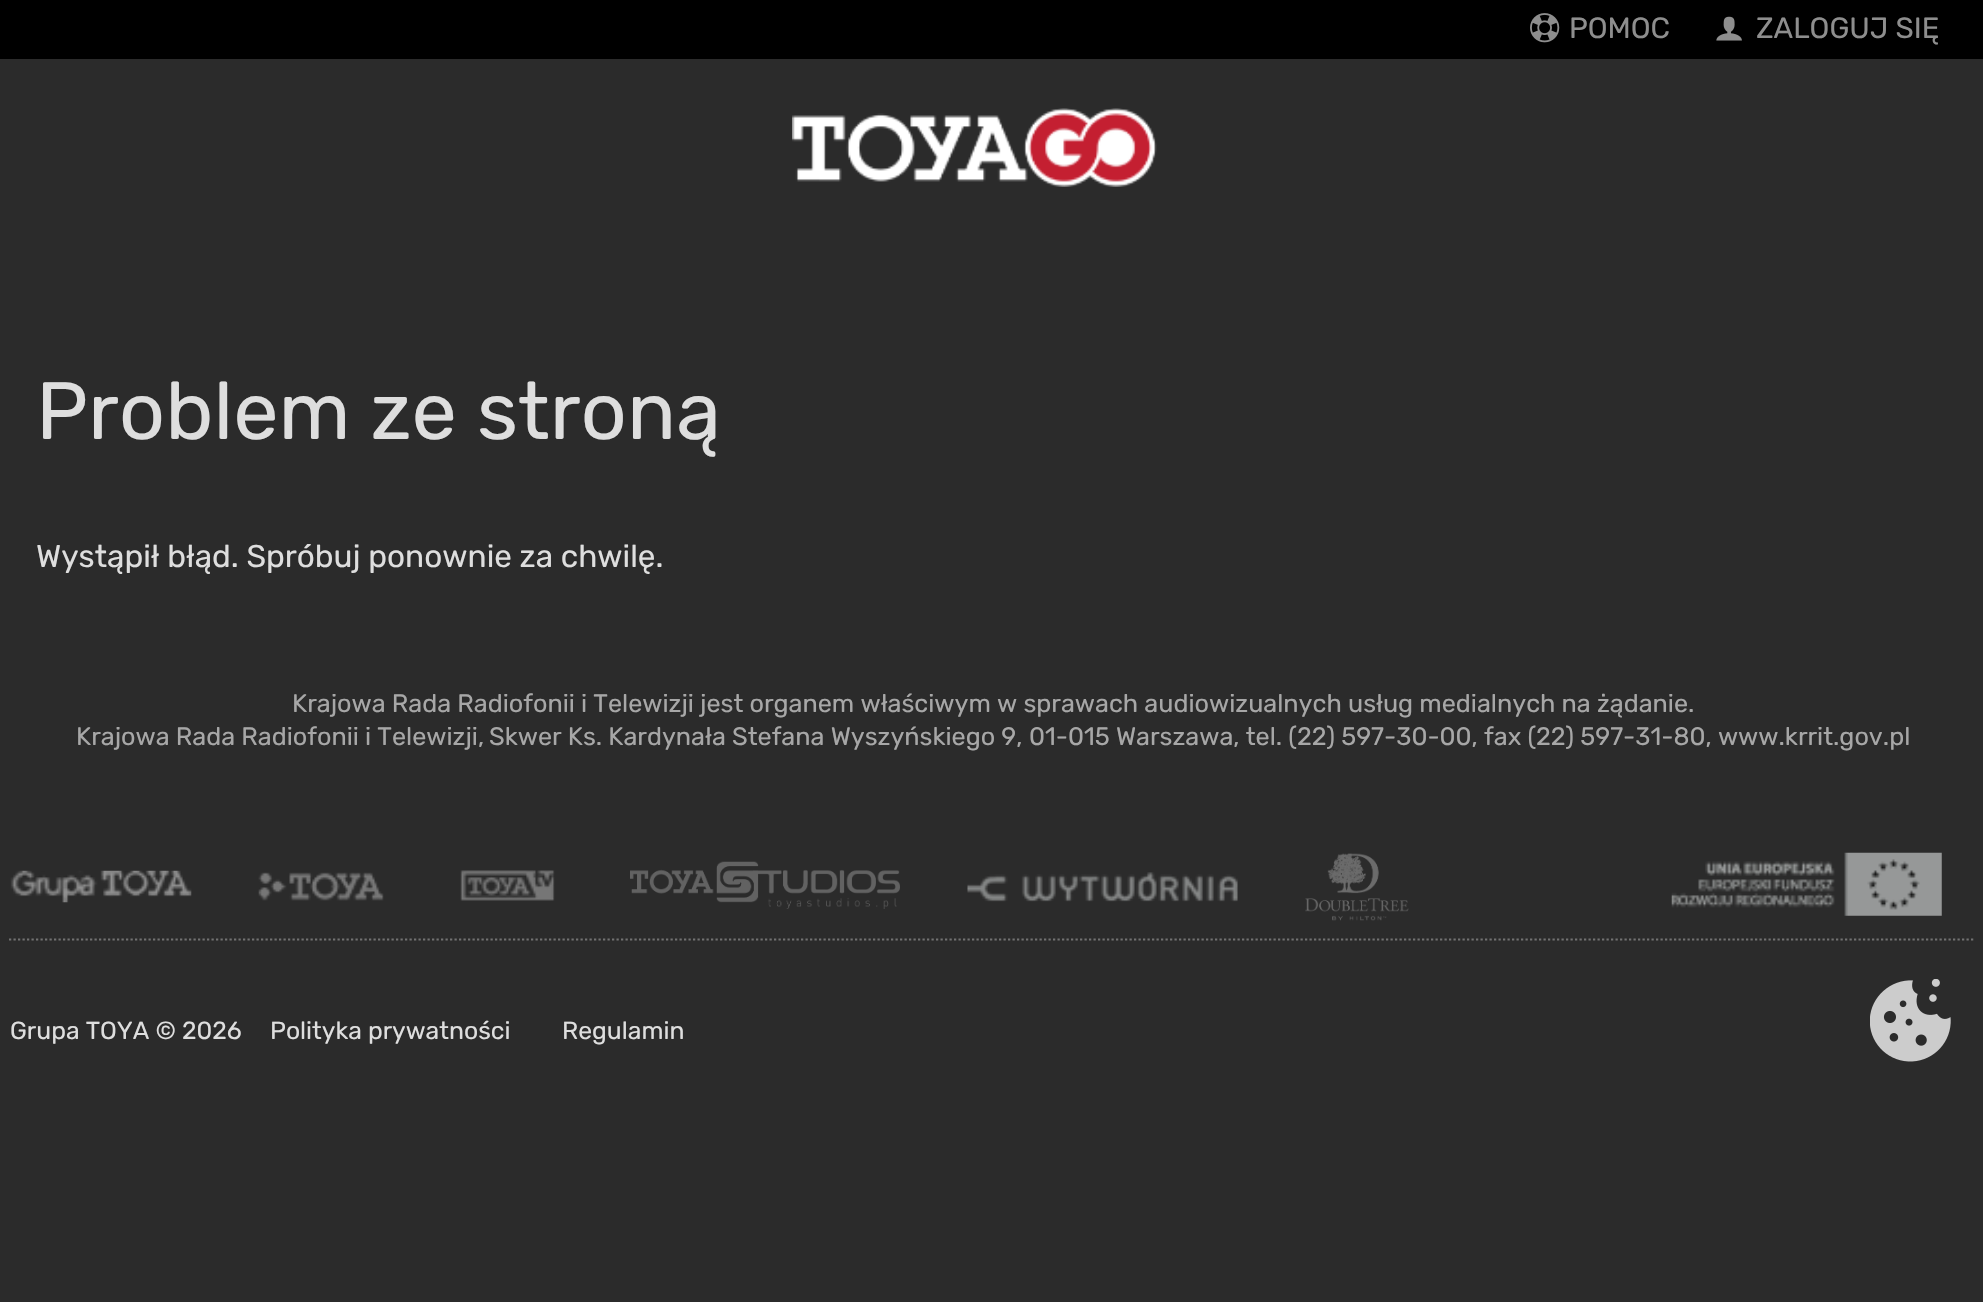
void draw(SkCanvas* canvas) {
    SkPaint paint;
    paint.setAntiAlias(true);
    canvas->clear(0xFF2B2B2B);
    paint.setColor(0xFF000000);
    canvas->drawRect(SkRect::MakeXYWH(0, 0, 1983, 59), paint);
    canvas->drawImageRect(SkImages::DeferredFromEncodedData(SkData::MakeFromFileName("img1.png")), SkRect::MakeXYWH(1530, 13, 30, 30), SkSamplingOptions());
    SkFont font1(fontMgr->matchFamilyStyle("Rubik", SkFontStyle::Normal()), 29.25f);
    font1.setSubpixel(true);
    paint.setColor(0xFF8E8E8E);
    canvas->drawString("POMOC", 1569, 38, font1, paint);
    canvas->drawImageRect(SkImages::DeferredFromEncodedData(SkData::MakeFromFileName("img2.png")), SkRect::MakeXYWH(1716, 16, 26, 25), SkSamplingOptions());
    canvas->drawString("ZALOGUJ SIĘ", 1756, 38, font1, paint);
    canvas->drawImageRect(SkImages::DeferredFromEncodedData(SkData::MakeFromFileName("img3.png")), SkRect::MakeXYWH(792, 108, 365, 79), SkSamplingOptions());
    SkFont font2(fontMgr->matchFamilyStyle("Rubik", SkFontStyle::Normal()), 81);
    font2.setSubpixel(true);
    paint.setColor(0xFFDEDEDE);
    canvas->drawString("Problem ze stroną", 36, 439, font2, paint);
    SkFont font3(fontMgr->matchFamilyStyle("Rubik", SkFontStyle::Normal()), 31.5f);
    font3.setSubpixel(true);
    canvas->drawString("Wystąpił błąd. Spróbuj ponownie za chwilę.", 36, 567, font3, paint);
    SkFont font4(fontMgr->matchFamilyStyle("Rubik", SkFontStyle::Normal()), 25.2f);
    font4.setSubpixel(true);
    paint.setColor(0xFFA7A7A7);
    canvas->drawString("Krajowa Rada Radiofonii i Telewizji jest organem właściwym w sprawach audiowizualnych usług medialnych na żądanie.", 292, 712, font4, paint);
    canvas->drawString("Krajowa Rada Radiofonii i Telewizji,", 76, 745, font4, paint);
    canvas->drawString("Skwer Ks. Kardynała Stefana Wyszyńskiego 9,", 489, 745, font4, paint);
    canvas->drawString("01-015 Warszawa, tel. (22) 597-30-00, fax (22) 597-31-80, www.krrit.gov.pl", 1029, 745, font4, paint);
    paint.setStyle(SkPaint::kStroke_Style);
    paint.setStrokeWidth(2.2f);
    paint.setColor(0xFF727272);
    paint.setPathEffect(SkDashPathEffect::Make({{2.25f, 2.25f}}, 0));
    canvas->drawPath(SkPathBuilder().moveTo(9, 939.5f).lineTo(1975.5f, 939.5f).detach(), paint);
    paint.setPathEffect(nullptr);
    canvas->drawImageRect(SkImages::DeferredFromEncodedData(SkData::MakeFromFileName("img4.png")), SkRect::MakeXYWH(10, 870, 182, 33), SkSamplingOptions());
    canvas->drawImageRect(SkImages::DeferredFromEncodedData(SkData::MakeFromFileName("img5.png")), SkRect::MakeXYWH(258, 872, 126, 29), SkSamplingOptions());
    canvas->drawImageRect(SkImages::DeferredFromEncodedData(SkData::MakeFromFileName("img6.png")), SkRect::MakeXYWH(460, 870, 95, 31), SkSamplingOptions());
    canvas->drawImageRect(SkImages::DeferredFromEncodedData(SkData::MakeFromFileName("img7.png")), SkRect::MakeXYWH(630, 861, 270, 48), SkSamplingOptions());
    canvas->drawImageRect(SkImages::DeferredFromEncodedData(SkData::MakeFromFileName("img8.png")), SkRect::MakeXYWH(967, 872, 271, 30), SkSamplingOptions());
    canvas->drawImageRect(SkImages::DeferredFromEncodedData(SkData::MakeFromFileName("img9.png")), SkRect::MakeXYWH(1305, 853, 104, 68), SkSamplingOptions());
    canvas->drawImageRect(SkImages::DeferredFromEncodedData(SkData::MakeFromFileName("img10.png")), SkRect::MakeXYWH(1671, 852, 271, 64), SkSamplingOptions());
    SkFont font5(fontMgr->matchFamilyStyle("Rubik", SkFontStyle::Normal()), 24.75f);
    font5.setSubpixel(true);
    paint.setStyle(SkPaint::kFill_Style);
    paint.setColor(0xFFDEDEDE);
    canvas->drawString("Grupa TOYA © 2026", 10, 1039, font5, paint);
    canvas->drawString("Polityka prywatności", 270, 1039, font5, paint);
    canvas->drawString("Regulamin", 562, 1039, font5, paint);
    canvas->drawImageRect(SkImages::DeferredFromEncodedData(SkData::MakeFromFileName("img11.png")), SkRect::MakeXYWH(1870, 979, 81, 83), SkSamplingOptions());
}
